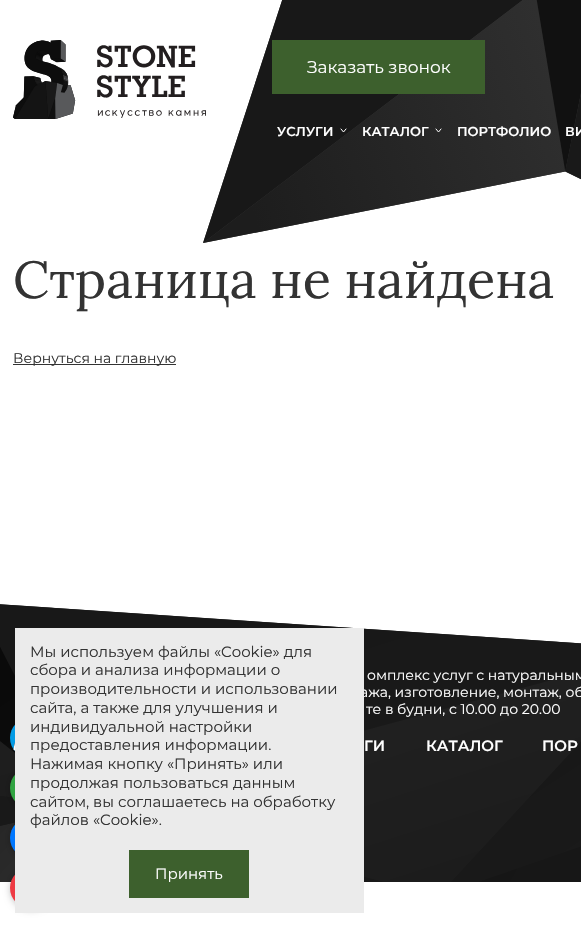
void draw(SkCanvas* canvas) {
    SkPaint paint;
    paint.setAntiAlias(true);
    canvas->clear(0xFFFFFFFF);
    canvas->drawImageRect(SkImages::DeferredFromEncodedData(SkData::MakeFromFileName("img1.png")), SkRect::MakeXYWH(203, 0, 378, 243), SkSamplingOptions());
    canvas->drawImageRect(SkImages::DeferredFromEncodedData(SkData::MakeFromFileName("img2.png")), SkRect::MakeXYWH(13, 40, 193, 79), SkSamplingOptions());
    paint.setColor(0xFF3D602D);
    canvas->drawRect(SkRect::MakeXYWH(272, 40, 213, 54), paint);
    SkFont font1(fontMgr->matchFamilyStyle("Montserrat", SkFontStyle::Normal()), 17);
    font1.setSubpixel(true);
    paint.setColor(0xFFFFFFFF);
    canvas->drawString("Заказать звонок", 307, 73, font1, paint);
    SkFont font2(fontMgr->matchFamilyStyle("Montserrat", SkFontStyle(600, SkFontStyle::kNormal_Width, SkFontStyle::kUpright_Slant)), 13);
    font2.setSubpixel(true);
    canvas->drawString("УСЛУГИ", 277, 136, font2, paint);
    paint.setStyle(SkPaint::kStroke_Style);
    paint.setStrokeWidth(1);
    paint.setStrokeCap(SkPaint::kRound_Cap);
    paint.setStrokeJoin(SkPaint::kRound_Join);
    canvas->drawPath(SkPathBuilder().moveTo(341, 129).lineTo(343.5f, 132).lineTo(346, 129).detach(), paint);
    paint.setStyle(SkPaint::kFill_Style);
    canvas->drawString("КАТАЛОГ", 362, 136, font2, paint);
    paint.setStyle(SkPaint::kStroke_Style);
    canvas->drawPath(SkPathBuilder().moveTo(436, 129).lineTo(438.5f, 132).lineTo(441, 129).detach(), paint);
    paint.setStyle(SkPaint::kFill_Style);
    canvas->drawString("ПОРТФОЛИО", 457, 136, font2, paint);
    canvas->drawString("ВИ", 565, 136, font2, paint);
    SkFont font3(fontMgr->matchFamilyStyle("Lora", SkFontStyle::Normal()), 52);
    font3.setSubpixel(true);
    paint.setColor(0xFF333333);
    canvas->drawString("Страница не найдена", 13, 298, font3, paint);
    canvas->drawRect(SkRect::MakeXYWH(13, 364, 163, 1), paint);
    SkFont font4(fontMgr->matchFamilyStyle("Montserrat", SkFontStyle::Normal()), 14);
    font4.setSubpixel(true);
    canvas->drawString("Вернуться на главную", 13, 363, font4, paint);
    canvas->drawImageRect(SkImages::DeferredFromEncodedData(SkData::MakeFromFileName("img4.png")), SkRect::MakeXYWH(0, 604, 581, 278), SkSamplingOptions());
    paint.setColor(0xFF039BE5);
    canvas->drawCircle(30, 738, 20, paint);
    paint.setColor(0x80000000);
    paint.setMaskFilter(SkMaskFilter::MakeBlur(kNormal_SkBlurStyle, 5));
    canvas->drawRoundRect(SkRect::MakeXYWH(13, 771, 36, 36), 18, 18, paint);
    paint.setMaskFilter(nullptr);
    paint.setColor(0xFF30A341);
    canvas->drawCircle(30, 788, 20, paint);
    paint.setColor(0x80000000);
    paint.setMaskFilter(SkMaskFilter::MakeBlur(kNormal_SkBlurStyle, 5));
    canvas->drawRoundRect(SkRect::MakeXYWH(13, 821, 36, 36), 18, 18, paint);
    paint.setMaskFilter(nullptr);
    paint.setColor(0xFF0077FF);
    canvas->drawCircle(30, 838, 20, paint);
    canvas->drawImageRect(SkImages::DeferredFromEncodedData(SkData::MakeFromFileName("img3.png")), SkRect::MakeXYWH(14, 825, 1, 5), SkSamplingOptions());
    paint.setColor(0x80000000);
    paint.setMaskFilter(SkMaskFilter::MakeBlur(kNormal_SkBlurStyle, 5));
    canvas->drawRoundRect(SkRect::MakeXYWH(13, 871, 36, 36), 18, 18, paint);
    paint.setMaskFilter(nullptr);
    paint.setColor(0xFFEE3A43);
    canvas->drawCircle(30, 888, 20, paint);
    paint.setColor(0xFFFFFFFF);
    canvas->drawString("ажа, изготовление, монтаж, об", 360, 697, font4, paint);
    paint.setColor(0xFFEBEBEB);
    canvas->drawRect(SkRect::MakeXYWH(15, 628, 349, 285), paint);
    SkFont font5(fontMgr->matchFamilyStyle("Montserrat", SkFontStyle::Normal()), 15);
    font5.setSubpixel(true);
    paint.setColor(0xFF333333);
    canvas->drawString("Мы используем файлы «Cookie» для", 30, 657, font5, paint);
    canvas->drawString("сбора и анализа информации о", 30, 675, font5, paint);
    canvas->drawString("производительности и использовании", 30, 694, font5, paint);
    canvas->drawString("сайта, а также для улучшения и", 30, 713, font5, paint);
    canvas->drawString("индивидуальной настройки", 30, 732, font5, paint);
    canvas->drawString("предоставления информации.", 30, 750, font5, paint);
    canvas->drawString("Нажимая кнопку «Принять» или", 30, 769, font5, paint);
    canvas->drawString("продолжая пользоваться данным", 30, 788, font5, paint);
    canvas->drawString("сайтом, вы соглашаетесь на обработку", 30, 807, font5, paint);
    canvas->drawString("файлов «Cookie».", 30, 825, font5, paint);
    paint.setColor(0xFF3D602D);
    canvas->drawRect(SkRect::MakeXYWH(129, 850, 120, 48), paint);
    paint.setColor(0xFFFFFFFF);
    canvas->drawString("Принять", 155, 879, font5, paint);
    canvas->drawImageRect(SkImages::DeferredFromEncodedData(SkData::MakeFromFileName("img5.png")), SkRect::MakeXYWH(13, 742, 2, 9), SkSamplingOptions());
    canvas->drawString("омплекс услуг с натуральным", 367, 680, font4, paint);
    canvas->drawString("те в будни, с 10.00 до 20.00", 366, 714, font4, paint);
    SkFont font6(fontMgr->matchFamilyStyle("Montserrat", SkFontStyle(600, SkFontStyle::kNormal_Width, SkFontStyle::kUpright_Slant)), 15);
    font6.setSubpixel(true);
    canvas->drawString("ГИ", 364, 751, font6, paint);
    canvas->drawString("КАТАЛОГ", 426, 751, font6, paint);
    canvas->drawString("ПОР", 542, 751, font6, paint);
}
